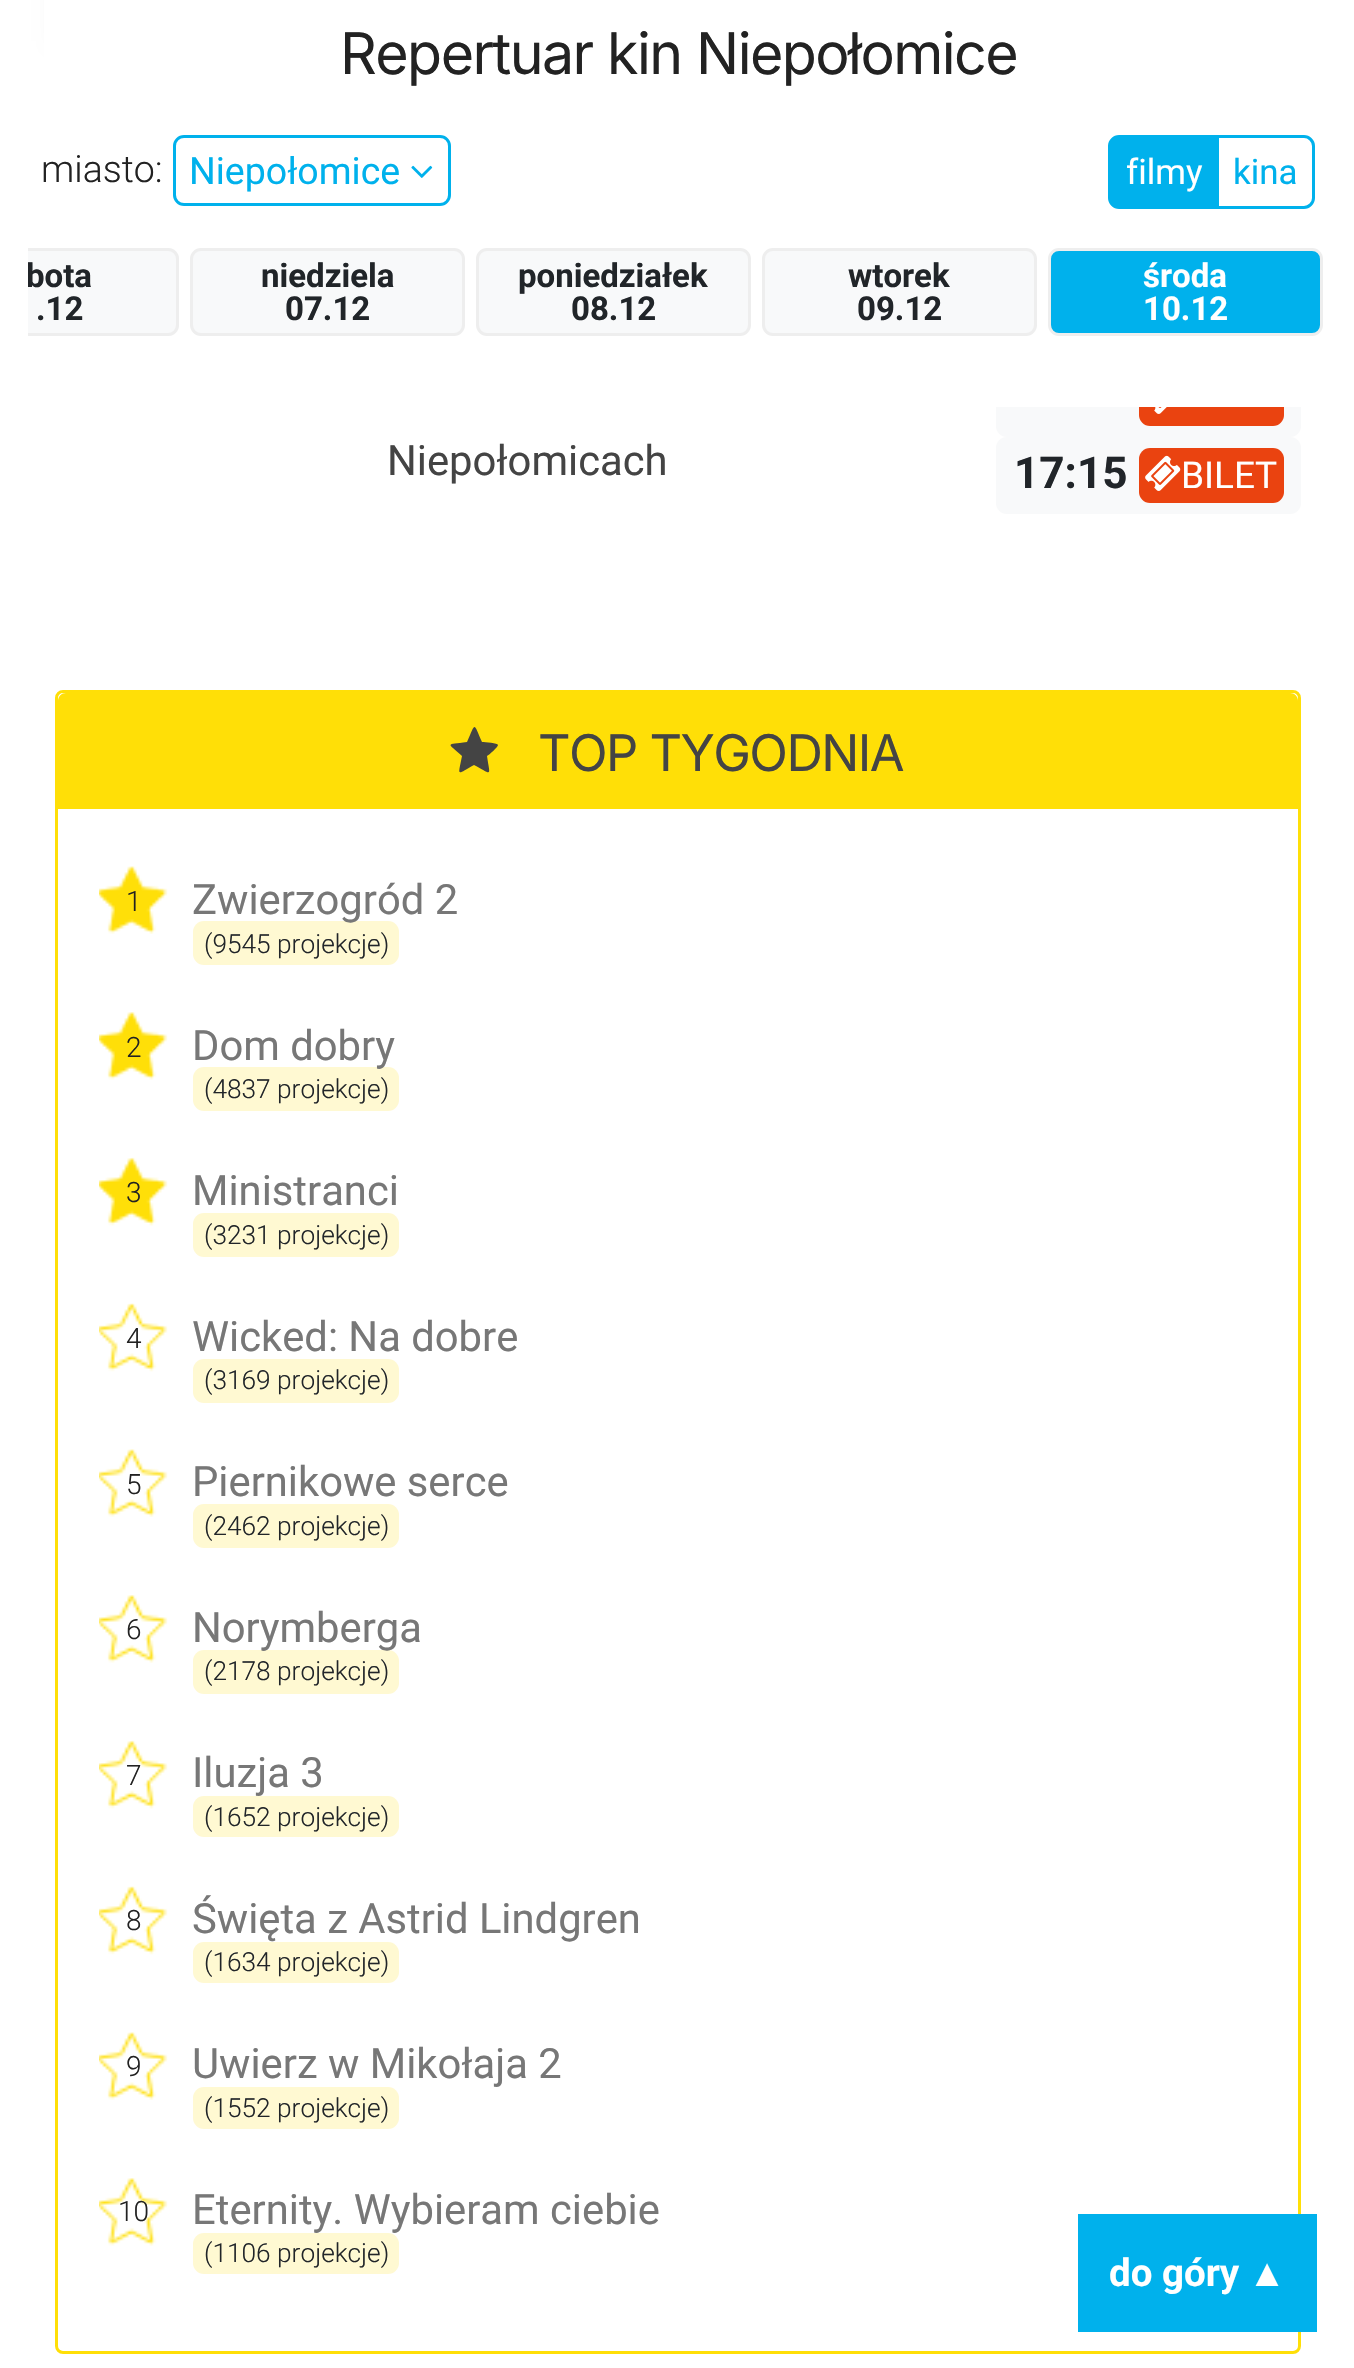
void draw(SkCanvas* canvas) {
    SkPaint paint;
    paint.setAntiAlias(true);
    auto spacedText = [&](const char* s, float x, float y, const SkFont& font, const SkPaint& ink, float letter, float word) {
        std::vector<SkGlyphID> glyphs(font.countText(s, strlen(s), SkTextEncoding::kUTF8));
        std::vector<float> xs(glyphs.size());
        font.textToGlyphs(s, strlen(s), SkTextEncoding::kUTF8, glyphs);
        font.getXPos(glyphs, xs, x);
        float extra = 0;
        for (size_t i = 0; i < glyphs.size(); i++) {
            xs[i] += extra;
            extra += letter + word * (glyphs[i] == font.unicharToGlyph(' '));
        }
        canvas->drawTextBlob(SkTextBlob::MakeFromPosHGlyphs(glyphs, xs, y, font), 0, 0, ink);
    };
    canvas->clear(0xFFFFFFFF);
    paint.setColor(0xFFE1E1E1);
    paint.setMaskFilter(SkMaskFilter::MakeBlur(kNormal_SkBlurStyle, 8));
    canvas->drawRect(SkRect::MakeXYWH(55, -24, 250, 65), paint);
    paint.setMaskFilter(nullptr);
    paint.setColor(0xFFF8F9FA);
    canvas->drawRoundRect(SkRect::MakeXYWH(996, 360, 305, 77), 11, 11, paint);
    paint.setColor(0xFFEA4310);
    canvas->drawRoundRect(SkRect::MakeXYWH(1139, 371, 145, 55), 11, 11, paint);
    paint.setColor(0xFFFFFFFF);
    canvas->drawRect(SkRect::MakeXYWH(44, 0, 1257, 407), paint);
    SkFont font1(fontMgr->matchFamilyStyle("Inter", SkFontStyle::Normal()), 57.25f);
    font1.setSubpixel(true);
    paint.setColor(0xFF222222);
    spacedText("Repertuar kin Niepołomice", 340, 74, font1, paint, -1.55f, 0);
    SkFont font2(fontMgr->matchFamilyStyle("Roboto", SkFontStyle(300, SkFontStyle::kNormal_Width, SkFontStyle::kUpright_Slant)), 37.5f);
    font2.setSubpixel(true);
    canvas->drawString("miasto:", 41, 182, font2, paint);
    paint.setStyle(SkPaint::kStroke_Style);
    paint.setStrokeWidth(3);
    paint.setColor(0xFF00B1EC);
    canvas->drawRoundRect(SkRect::MakeXYWH(174.5f, 136.5f, 275, 68), 9.5f, 9.5f, paint);
    SkFont font3(fontMgr->matchFamilyStyle("Roboto", SkFontStyle::Normal()), 37.5f);
    font3.setSubpixel(true);
    paint.setStyle(SkPaint::kFill_Style);
    canvas->drawString("Niepołomice", 189, 184, font3, paint);
    canvas->drawImageRect(SkImages::DeferredFromEncodedData(SkData::MakeFromFileName("img1.png")), SkRect::MakeXYWH(411, 165, 22, 13), SkSamplingOptions());
    canvas->drawPath(SkPathBuilder().moveTo(1119, 136.5f).lineTo(1216.5f, 136.5f).lineTo(1216.5f, 207.5f).lineTo(1119, 207.5f).cubicTo(1114, 207.5f, 1109.5f, 203, 1109.5f, 198).lineTo(1109.5f, 146).cubicTo(1109.5f, 141, 1114, 136.5f, 1119, 136.5f).close().detach(), paint);
    paint.setStyle(SkPaint::kStroke_Style);
    canvas->drawPath(SkPathBuilder().moveTo(1119, 136.5f).lineTo(1216.5f, 136.5f).lineTo(1216.5f, 207.5f).lineTo(1119, 207.5f).cubicTo(1114, 207.5f, 1109.5f, 203, 1109.5f, 198).lineTo(1109.5f, 146).cubicTo(1109.5f, 141, 1114, 136.5f, 1119, 136.5f).close().detach(), paint);
    SkFont font4(fontMgr->matchFamilyStyle("Roboto", SkFontStyle::Normal()), 35);
    font4.setSubpixel(true);
    paint.setStyle(SkPaint::kFill_Style);
    paint.setColor(0xFFFFFFFF);
    canvas->drawString("filmy", 1126, 184, font4, paint);
    canvas->drawPath(SkPathBuilder().moveTo(1217.5f, 136.5f).lineTo(1304, 136.5f).cubicTo(1309, 136.5f, 1313.5f, 141, 1313.5f, 146).lineTo(1313.5f, 198).cubicTo(1313.5f, 203, 1309, 207.5f, 1304, 207.5f).lineTo(1217.5f, 207.5f).close().detach(), paint);
    paint.setStyle(SkPaint::kStroke_Style);
    paint.setColor(0xFF00B1EC);
    canvas->drawPath(SkPathBuilder().moveTo(1217.5f, 136.5f).lineTo(1304, 136.5f).cubicTo(1309, 136.5f, 1313.5f, 141, 1313.5f, 146).lineTo(1313.5f, 198).cubicTo(1313.5f, 203, 1309, 207.5f, 1304, 207.5f).lineTo(1217.5f, 207.5f).close().detach(), paint);
    paint.setStyle(SkPaint::kFill_Style);
    canvas->drawString("kina", 1233, 184, font4, paint);
    paint.setColor(0xFFF8F9FA);
    canvas->drawPath(SkPathBuilder().moveTo(28, 248).lineTo(168, 248).cubicTo(174, 248, 179, 253, 179, 259).lineTo(179, 325).cubicTo(179, 331, 174, 336, 168, 336).lineTo(28, 336).close().detach(), paint);
    canvas->save();
    canvas->clipRect(SkRect::MakeXYWH(28, 234, 1300, 129));
    paint.setStyle(SkPaint::kStroke_Style);
    paint.setColor(0xFFEEEEEE);
    canvas->drawRoundRect(SkRect::MakeXYWH(-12.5f, 249.5f, 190, 85), 9.5f, 9.5f, paint);
    SkFont font5(fontMgr->matchFamilyStyle("Roboto", SkFontStyle::Bold()), 33);
    font5.setSubpixel(true);
    paint.setStyle(SkPaint::kFill_Style);
    paint.setColor(0xFF212529);
    canvas->drawString("bota", 26, 287, font5, paint);
    canvas->restore();
    canvas->drawString(".12", 36, 320, font5, paint);
    paint.setColor(0xFFF8F9FA);
    canvas->drawRoundRect(SkRect::MakeXYWH(191.5f, 249.5f, 272, 85), 9.5f, 9.5f, paint);
    paint.setStyle(SkPaint::kStroke_Style);
    paint.setColor(0xFFEEEEEE);
    canvas->drawRoundRect(SkRect::MakeXYWH(191.5f, 249.5f, 272, 85), 9.5f, 9.5f, paint);
    paint.setStyle(SkPaint::kFill_Style);
    paint.setColor(0xFF212529);
    canvas->drawString("niedziela", 261, 287, font5, paint);
    canvas->drawString("07.12", 285, 320, font5, paint);
    paint.setColor(0xFFF8F9FA);
    canvas->drawRoundRect(SkRect::MakeXYWH(477.5f, 249.5f, 272, 85), 9.5f, 9.5f, paint);
    paint.setStyle(SkPaint::kStroke_Style);
    paint.setColor(0xFFEEEEEE);
    canvas->drawRoundRect(SkRect::MakeXYWH(477.5f, 249.5f, 272, 85), 9.5f, 9.5f, paint);
    paint.setStyle(SkPaint::kFill_Style);
    paint.setColor(0xFF212529);
    canvas->drawString("poniedziałek", 518, 287, font5, paint);
    canvas->drawString("08.12", 571, 320, font5, paint);
    paint.setColor(0xFFF8F9FA);
    canvas->drawRoundRect(SkRect::MakeXYWH(763.5f, 249.5f, 272, 85), 9.5f, 9.5f, paint);
    paint.setStyle(SkPaint::kStroke_Style);
    paint.setColor(0xFFEEEEEE);
    canvas->drawRoundRect(SkRect::MakeXYWH(763.5f, 249.5f, 272, 85), 9.5f, 9.5f, paint);
    paint.setStyle(SkPaint::kFill_Style);
    paint.setColor(0xFF212529);
    canvas->drawString("wtorek", 848, 287, font5, paint);
    canvas->drawString("09.12", 857, 320, font5, paint);
    paint.setColor(0xFF00B1EC);
    canvas->drawRoundRect(SkRect::MakeXYWH(1049.5f, 249.5f, 272, 85), 9.5f, 9.5f, paint);
    paint.setStyle(SkPaint::kStroke_Style);
    paint.setColor(0xFFEEEEEE);
    canvas->drawRoundRect(SkRect::MakeXYWH(1049.5f, 249.5f, 272, 85), 9.5f, 9.5f, paint);
    paint.setStyle(SkPaint::kFill_Style);
    paint.setColor(0xFFFFFFFF);
    canvas->drawString("środa", 1143, 287, font5, paint);
    canvas->drawString("10.12", 1143, 320, font5, paint);
    SkFont font6(fontMgr->matchFamilyStyle("Roboto", SkFontStyle::Normal()), 41.75f);
    font6.setSubpixel(true);
    paint.setColor(0xFF444444);
    canvas->drawString("Niepołomicach", 387, 475, font6, paint);
    canvas->drawImageRect(SkImages::DeferredFromEncodedData(SkData::MakeFromFileName("img2.png")), SkRect::MakeXYWH(1154, 407, 13, 7), SkSamplingOptions());
    paint.setColor(0xFFF8F9FA);
    canvas->drawRoundRect(SkRect::MakeXYWH(996, 437, 305, 77), 11, 11, paint);
    SkFont font7(fontMgr->matchFamilyStyle("Roboto", SkFontStyle::Bold()), 44);
    font7.setSubpixel(true);
    paint.setColor(0xFF212529);
    canvas->drawString("17:15", 1014, 488, font7, paint);
    paint.setColor(0xFFEA4310);
    canvas->drawRoundRect(SkRect::MakeXYWH(1139, 448, 145, 55), 11, 11, paint);
    canvas->drawImageRect(SkImages::DeferredFromEncodedData(SkData::MakeFromFileName("img3.png")), SkRect::MakeXYWH(1145, 455, 36, 36), SkSamplingOptions());
    SkFont font8(fontMgr->matchFamilyStyle("Roboto", SkFontStyle::Normal()), 37);
    font8.setSubpixel(true);
    paint.setColor(0xFFFFFFFF);
    canvas->drawString("BILET", 1181, 488, font8, paint);
    paint.setStyle(SkPaint::kStroke_Style);
    paint.setColor(0xFFFFDF07);
    canvas->drawRoundRect(SkRect::MakeXYWH(56.5f, 691.5f, 1243, 1661), 6.5f, 6.5f, paint);
    paint.setStyle(SkPaint::kFill_Style);
    canvas->drawPath(SkPathBuilder().moveTo(66, 693).lineTo(1290, 693).cubicTo(1294.5f, 693, 1298, 696.5f, 1298, 701).lineTo(1298, 809).lineTo(58, 809).lineTo(58, 701).cubicTo(58, 696.5f, 61.5f, 693, 66, 693).close().detach(), paint);
    paint.setColor(0xFF444444);
    canvas->drawPath(SkPathBuilder().moveTo(498, 745).cubicTo(498, 747, 489, 755, 487, 756).cubicTo(490, 777, 493, 775, 474, 765).cubicTo(456, 775, 458, 777, 462, 756).cubicTo(447, 742, 445, 745, 467, 742).cubicTo(476, 722, 473, 722, 482, 742).cubicTo(485, 742, 498, 743, 498, 745).close().detach(), paint);
    SkFont font9(fontMgr->matchFamilyStyle("Inter", SkFontStyle::Normal()), 50.5f);
    font9.setSubpixel(true);
    spacedText("TOP TYGODNIA", 538, 771, font9, paint, -1.55f, 0);
    canvas->drawImageRect(SkImages::DeferredFromEncodedData(SkData::MakeFromFileName("img4.png")), SkRect::MakeXYWH(99, 866, 69, 68), SkSamplingOptions());
    SkFont font10(fontMgr->matchFamilyStyle("Roboto", SkFontStyle(300, SkFontStyle::kNormal_Width, SkFontStyle::kUpright_Slant)), 28);
    font10.setSubpixel(true);
    paint.setColor(0xFF222222);
    canvas->drawString("1", 126, 911, font10, paint);
    paint.setColor(0xFFFFF9D2);
    canvas->drawRoundRect(SkRect::MakeXYWH(193, 921, 206, 44), 11, 11, paint);
    paint.setColor(0xFF777777);
    canvas->drawString("Zwierzogród 2", 192, 914, font6, paint);
    SkFont font11(fontMgr->matchFamilyStyle("Roboto", SkFontStyle(300, SkFontStyle::kNormal_Width, SkFontStyle::kUpright_Slant)), 26.25f);
    font11.setSubpixel(true);
    paint.setColor(0xFF212529);
    canvas->drawString("(9545 projekcje)", 204, 953, font11, paint);
    canvas->drawImageRect(SkImages::DeferredFromEncodedData(SkData::MakeFromFileName("img5.png")), SkRect::MakeXYWH(99, 1012, 69, 68), SkSamplingOptions());
    paint.setColor(0xFF222222);
    canvas->drawString("2", 126, 1057, font10, paint);
    paint.setColor(0xFFFFF9D2);
    canvas->drawRoundRect(SkRect::MakeXYWH(193, 1067, 206, 44), 11, 11, paint);
    paint.setColor(0xFF777777);
    canvas->drawString("Dom dobry", 192, 1060, font6, paint);
    paint.setColor(0xFF212529);
    canvas->drawString("(4837 projekcje)", 204, 1098, font11, paint);
    canvas->drawImageRect(SkImages::DeferredFromEncodedData(SkData::MakeFromFileName("img6.png")), SkRect::MakeXYWH(99, 1157, 69, 69), SkSamplingOptions());
    paint.setColor(0xFF222222);
    canvas->drawString("3", 126, 1202, font10, paint);
    paint.setColor(0xFF777777);
    canvas->drawString("Ministranci", 192, 1205, font6, paint);
    paint.setColor(0xFFFFF9D2);
    canvas->drawRoundRect(SkRect::MakeXYWH(193, 1213, 206, 44), 11, 11, paint);
    paint.setColor(0xFF212529);
    canvas->drawString("(3231 projekcje)", 204, 1244, font11, paint);
    canvas->drawImageRect(SkImages::DeferredFromEncodedData(SkData::MakeFromFileName("img7.png")), SkRect::MakeXYWH(99, 1303, 69, 69), SkSamplingOptions());
    paint.setColor(0xFF222222);
    canvas->drawString("4", 126, 1348, font10, paint);
    paint.setColor(0xFF777777);
    canvas->drawString("Wicked: Na dobre", 192, 1351, font6, paint);
    paint.setColor(0xFFFFF9D2);
    canvas->drawRoundRect(SkRect::MakeXYWH(193, 1359, 206, 44), 11, 11, paint);
    paint.setColor(0xFF212529);
    canvas->drawString("(3169 projekcje)", 204, 1389, font11, paint);
    canvas->drawImageRect(SkImages::DeferredFromEncodedData(SkData::MakeFromFileName("img8.png")), SkRect::MakeXYWH(99, 1449, 69, 68), SkSamplingOptions());
    paint.setColor(0xFF222222);
    canvas->drawString("5", 126, 1494, font10, paint);
    paint.setColor(0xFF777777);
    canvas->drawString("Piernikowe serce", 192, 1496, font6, paint);
    paint.setColor(0xFFFFF9D2);
    canvas->drawRoundRect(SkRect::MakeXYWH(193, 1504, 206, 44), 11, 11, paint);
    paint.setColor(0xFF212529);
    canvas->drawString("(2462 projekcje)", 204, 1535, font11, paint);
    canvas->drawImageRect(SkImages::DeferredFromEncodedData(SkData::MakeFromFileName("img9.png")), SkRect::MakeXYWH(99, 1595, 69, 68), SkSamplingOptions());
    paint.setColor(0xFF222222);
    canvas->drawString("6", 126, 1639, font10, paint);
    paint.setColor(0xFFFFF9D2);
    canvas->drawRoundRect(SkRect::MakeXYWH(193, 1650, 206, 44), 11, 11, paint);
    paint.setColor(0xFF777777);
    canvas->drawString("Norymberga", 192, 1642, font6, paint);
    paint.setColor(0xFF212529);
    canvas->drawString("(2178 projekcje)", 204, 1680, font11, paint);
    canvas->drawImageRect(SkImages::DeferredFromEncodedData(SkData::MakeFromFileName("img10.png")), SkRect::MakeXYWH(99, 1740, 69, 69), SkSamplingOptions());
    paint.setColor(0xFF222222);
    canvas->drawString("7", 126, 1785, font10, paint);
    paint.setColor(0xFF777777);
    canvas->drawString("Iluzja 3", 192, 1787, font6, paint);
    paint.setColor(0xFFFFF9D2);
    canvas->drawRoundRect(SkRect::MakeXYWH(193, 1796, 206, 41), 11, 11, paint);
    paint.setColor(0xFF212529);
    canvas->drawString("(1652 projekcje)", 204, 1826, font11, paint);
    canvas->drawImageRect(SkImages::DeferredFromEncodedData(SkData::MakeFromFileName("img7.png")), SkRect::MakeXYWH(99, 1886, 69, 69), SkSamplingOptions());
    paint.setColor(0xFF222222);
    canvas->drawString("8", 126, 1930, font10, paint);
    paint.setColor(0xFF777777);
    canvas->drawString("Święta z Astrid Lindgren", 192, 1933, font6, paint);
    paint.setColor(0xFFFFF9D2);
    canvas->drawRoundRect(SkRect::MakeXYWH(193, 1942, 206, 41), 11, 11, paint);
    paint.setColor(0xFF212529);
    canvas->drawString("(1634 projekcje)", 204, 1971, font11, paint);
    canvas->drawImageRect(SkImages::DeferredFromEncodedData(SkData::MakeFromFileName("img8.png")), SkRect::MakeXYWH(99, 2032, 69, 68), SkSamplingOptions());
    paint.setColor(0xFF222222);
    canvas->drawString("9", 126, 2076, font10, paint);
    paint.setColor(0xFF777777);
    canvas->drawString("Uwierz w Mikołaja 2", 192, 2078, font6, paint);
    paint.setColor(0xFFFFF9D2);
    canvas->drawRoundRect(SkRect::MakeXYWH(193, 2087, 206, 42), 11, 11, paint);
    paint.setColor(0xFF212529);
    canvas->drawString("(1552 projekcje)", 204, 2117, font11, paint);
    canvas->drawImageRect(SkImages::DeferredFromEncodedData(SkData::MakeFromFileName("img9.png")), SkRect::MakeXYWH(99, 2178, 69, 68), SkSamplingOptions());
    paint.setColor(0xFF222222);
    canvas->drawString("10", 118, 2221, font10, paint);
    paint.setColor(0xFF777777);
    canvas->drawString("Eternity. Wybieram ciebie", 192, 2224, font6, paint);
    paint.setColor(0xFFFFF9D2);
    canvas->drawRoundRect(SkRect::MakeXYWH(193, 2233, 206, 41), 11, 11, paint);
    paint.setColor(0xFF212529);
    canvas->drawString("(1106 projekcje)", 204, 2262, font11, paint);
    paint.setColor(0xFF00B1EC);
    canvas->drawRect(SkRect::MakeXYWH(1078, 2214, 239, 118), paint);
    SkFont font12(fontMgr->matchFamilyStyle("Roboto", SkFontStyle::Bold()), 38.5f);
    font12.setSubpixel(true);
    paint.setColor(0xFFFFFFFF);
    canvas->drawString("do góry", 1109, 2286, font12, paint);
    SkFont font13(fontMgr->matchFamilyStyle("Liberation Sans", SkFontStyle::Bold()), 38.5f);
    font13.setSubpixel(true);
    canvas->drawString("▲", 1248, 2286, font13, paint);
}
